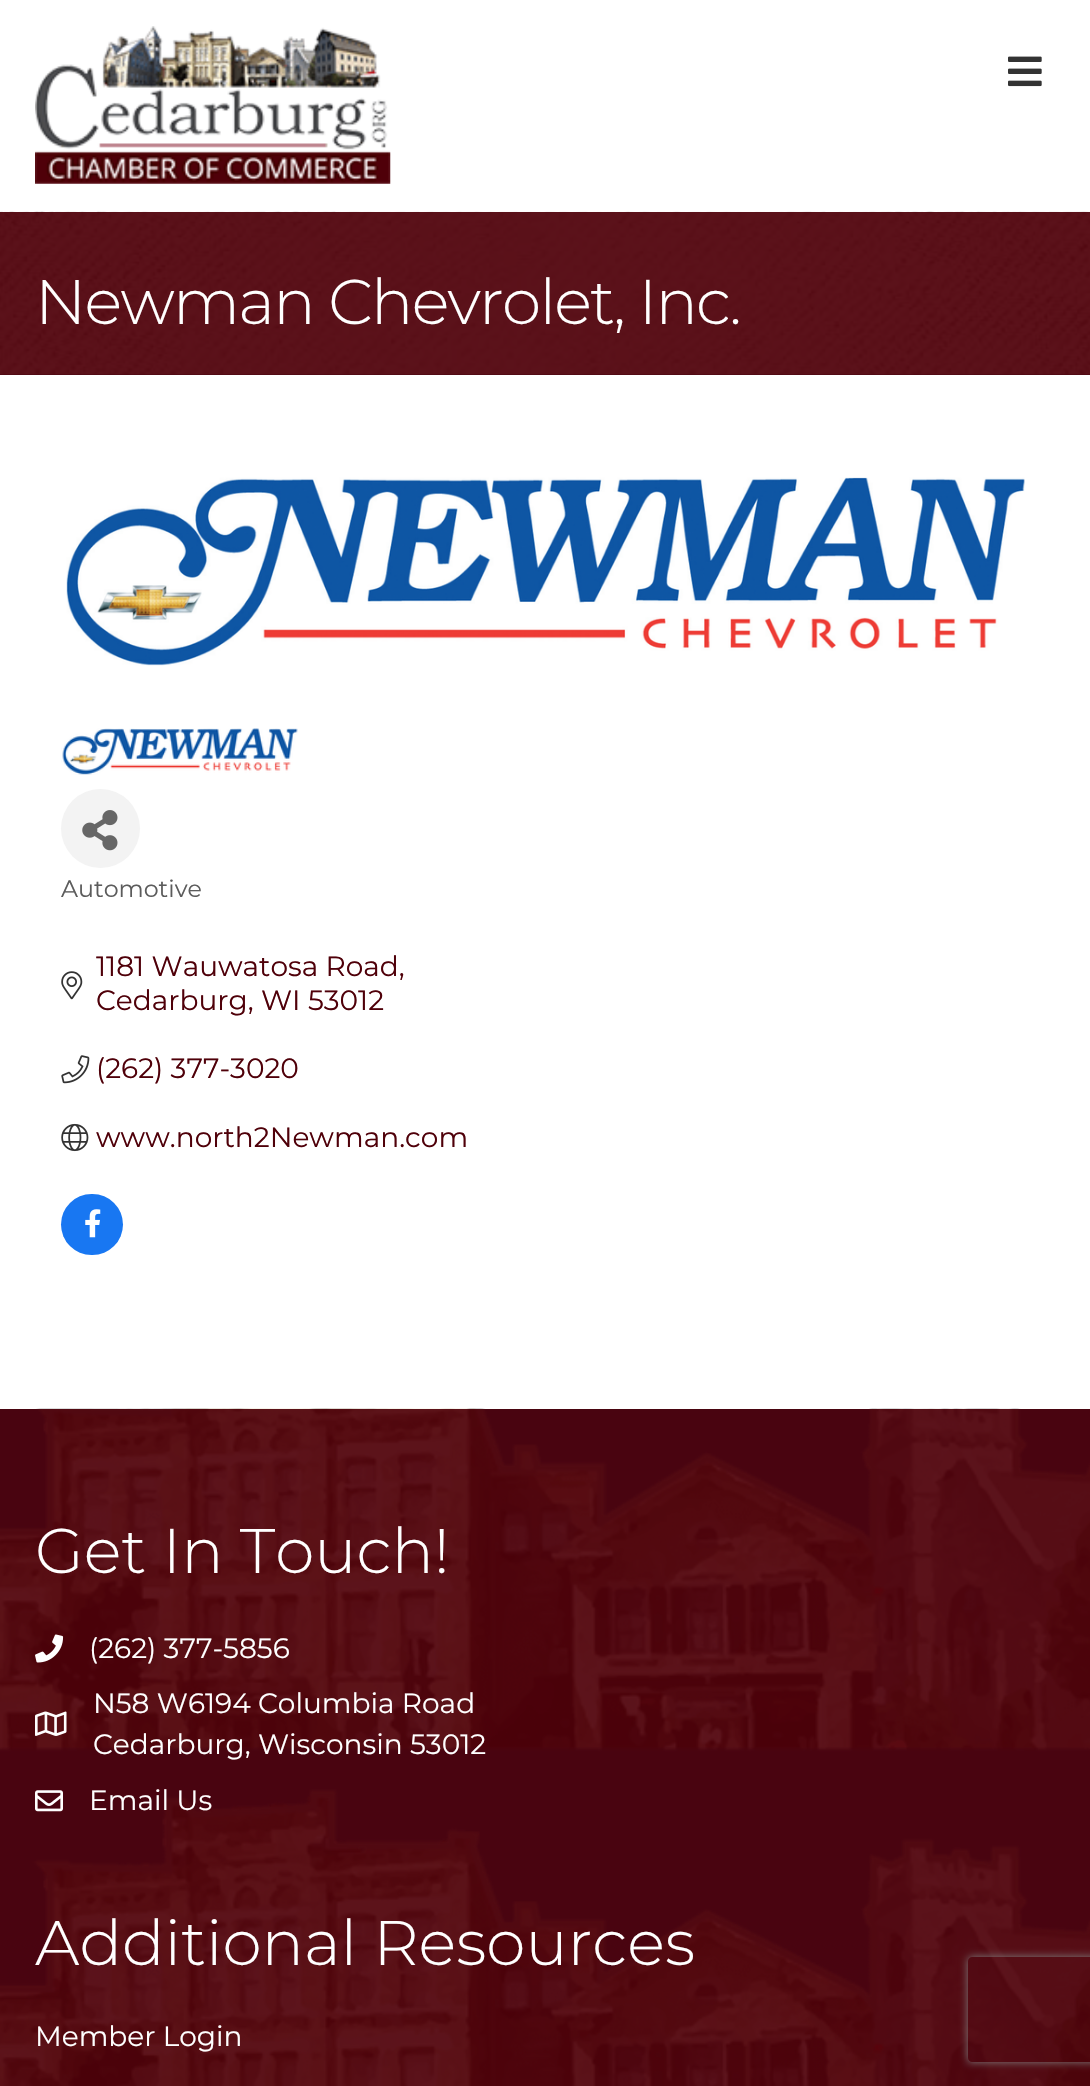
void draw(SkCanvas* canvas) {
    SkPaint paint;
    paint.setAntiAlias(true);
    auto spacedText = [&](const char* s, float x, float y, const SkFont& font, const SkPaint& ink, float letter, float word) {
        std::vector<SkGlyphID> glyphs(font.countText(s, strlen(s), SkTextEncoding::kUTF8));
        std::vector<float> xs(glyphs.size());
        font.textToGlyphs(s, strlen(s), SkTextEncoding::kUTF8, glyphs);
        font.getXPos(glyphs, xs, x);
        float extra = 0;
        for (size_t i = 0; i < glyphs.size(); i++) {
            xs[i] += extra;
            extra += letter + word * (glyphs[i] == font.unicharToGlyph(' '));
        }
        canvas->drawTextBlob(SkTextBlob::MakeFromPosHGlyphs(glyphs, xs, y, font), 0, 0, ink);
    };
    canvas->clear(0xFFFFFFFF);
    canvas->drawImageRect(SkImages::DeferredFromEncodedData(SkData::MakeFromFileName("img1.png")), SkRect::MakeXYWH(35, 26, 356, 158), SkSamplingOptions());
    canvas->drawImageRect(SkImages::DeferredFromEncodedData(SkData::MakeFromFileName("img2.png")), SkRect::MakeXYWH(1008, 56, 34, 31), SkSamplingOptions());
    paint.setColor(0xFF4A0410);
    canvas->drawRect(SkRect::MakeXYWH(0, 374, 1090, 1), paint);
    canvas->drawImageRect(SkImages::DeferredFromEncodedData(SkData::MakeFromFileName("img3.png")), SkRect::MakeXYWH(0, 211, 1090, 164), SkSamplingOptions());
    SkFont font1(fontMgr->matchFamilyStyle("Montserrat", SkFontStyle(300, SkFontStyle::kNormal_Width, SkFontStyle::kUpright_Slant)), 63);
    font1.setSubpixel(true);
    paint.setColor(0xFFFFFFFF);
    spacedText("Newman Chevrolet, Inc.", 35, 324, font1, paint, -1.75f, 0);
    canvas->drawImageRect(SkImages::DeferredFromEncodedData(SkData::MakeFromFileName("img4.png")), SkRect::MakeXYWH(66, 477, 959, 189), SkSamplingOptions());
    canvas->drawImageRect(SkImages::DeferredFromEncodedData(SkData::MakeFromFileName("img5.png")), SkRect::MakeXYWH(61, 728, 237, 47), SkSamplingOptions());
    paint.setColor(0xFFF3F3F3);
    canvas->drawCircle(100.5f, 828.5f, 39.5f, paint);
    canvas->drawImageRect(SkImages::DeferredFromEncodedData(SkData::MakeFromFileName("img6.png")), SkRect::MakeXYWH(82, 810, 36, 41), SkSamplingOptions());
    SkFont font2(fontMgr->matchFamilyStyle("Montserrat", SkFontStyle::Normal()), 23.75f);
    font2.setSubpixel(true);
    paint.setColor(0xFF5C5C5C);
    canvas->drawString("Automotive", 61, 897, font2, paint);
    SkFont font3(fontMgr->matchFamilyStyle("Montserrat", SkFontStyle::Normal()), 28);
    font3.setSubpixel(true);
    paint.setColor(0xFF4F0009);
    canvas->drawString("1181 Wauwatosa Road,", 96, 976, font3, paint);
    canvas->drawImageRect(SkImages::DeferredFromEncodedData(SkData::MakeFromFileName("img7.png")), SkRect::MakeXYWH(61, 971, 22, 29), SkSamplingOptions());
    canvas->drawString("Cedarburg, WI 53012", 96, 1010, font3, paint);
    canvas->drawImageRect(SkImages::DeferredFromEncodedData(SkData::MakeFromFileName("img8.png")), SkRect::MakeXYWH(61, 1055, 29, 29), SkSamplingOptions());
    canvas->drawString("(262) 377-3020", 96, 1078, font3, paint);
    canvas->drawImageRect(SkImages::DeferredFromEncodedData(SkData::MakeFromFileName("img9.png")), SkRect::MakeXYWH(61, 1123, 28, 29), SkSamplingOptions());
    canvas->drawString("www.north2Newman.com", 96, 1147, font3, paint);
    paint.setColor(0xFF1877F2);
    canvas->drawRoundRect(SkRect::MakeXYWH(61, 1194, 62, 61), 30.5f, 30.5f, paint);
    canvas->drawImageRect(SkImages::DeferredFromEncodedData(SkData::MakeFromFileName("img10.png")), SkRect::MakeXYWH(85, 1209, 16, 29), SkSamplingOptions());
    paint.setColor(0xFF490410);
    canvas->drawRect(SkRect::MakeXYWH(0, 1409, 1090, 588), paint);
    canvas->drawImageRect(SkImages::DeferredFromEncodedData(SkData::MakeFromFileName("img11.png")), SkRect::MakeXYWH(0, 1408, 1090, 678), SkSamplingOptions());
    paint.setColor(0xFFFFFFFF);
    canvas->drawString("Get In Touch!", 35, 1573, font1, paint);
    canvas->drawImageRect(SkImages::DeferredFromEncodedData(SkData::MakeFromFileName("img12.png")), SkRect::MakeXYWH(35, 1634, 29, 29), SkSamplingOptions());
    canvas->drawString("(262) 377-5856", 89, 1658, font3, paint);
    canvas->drawImageRect(SkImages::DeferredFromEncodedData(SkData::MakeFromFileName("img13.png")), SkRect::MakeXYWH(35, 1711, 32, 25), SkSamplingOptions());
    canvas->drawString("N58 W6194 Columbia Road", 93, 1713, font3, paint);
    canvas->drawString("Cedarburg, Wisconsin 53012", 93, 1754, font3, paint);
    canvas->drawImageRect(SkImages::DeferredFromEncodedData(SkData::MakeFromFileName("img14.png")), SkRect::MakeXYWH(35, 1790, 28, 22), SkSamplingOptions());
    canvas->drawString("Email Us", 89, 1810, font3, paint);
    canvas->drawString("Additional Resources", 35, 1965, font1, paint);
    canvas->drawString("Member Login", 35, 2046, font3, paint);
    canvas->save();
    canvas->clipPath(SkPathBuilder(SkPathFillType::kEvenOdd).moveTo(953, 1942).lineTo(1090, 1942).lineTo(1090, 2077).lineTo(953, 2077).close().moveTo(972, 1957).lineTo(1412, 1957).cubicTo(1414, 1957, 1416, 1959, 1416, 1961).lineTo(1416, 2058).cubicTo(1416, 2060, 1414, 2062, 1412, 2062).lineTo(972, 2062).cubicTo(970, 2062, 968, 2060, 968, 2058).lineTo(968, 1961).cubicTo(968, 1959, 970, 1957, 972, 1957).close().detach(), true);
    paint.setColor(0xFF808080);
    paint.setMaskFilter(SkMaskFilter::MakeBlur(kNormal_SkBlurStyle, 4.5f));
    canvas->drawRoundRect(SkRect::MakeXYWH(968, 1957, 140, 105), 4, 4, paint);
    paint.setMaskFilter(nullptr);
    canvas->restore();
}
